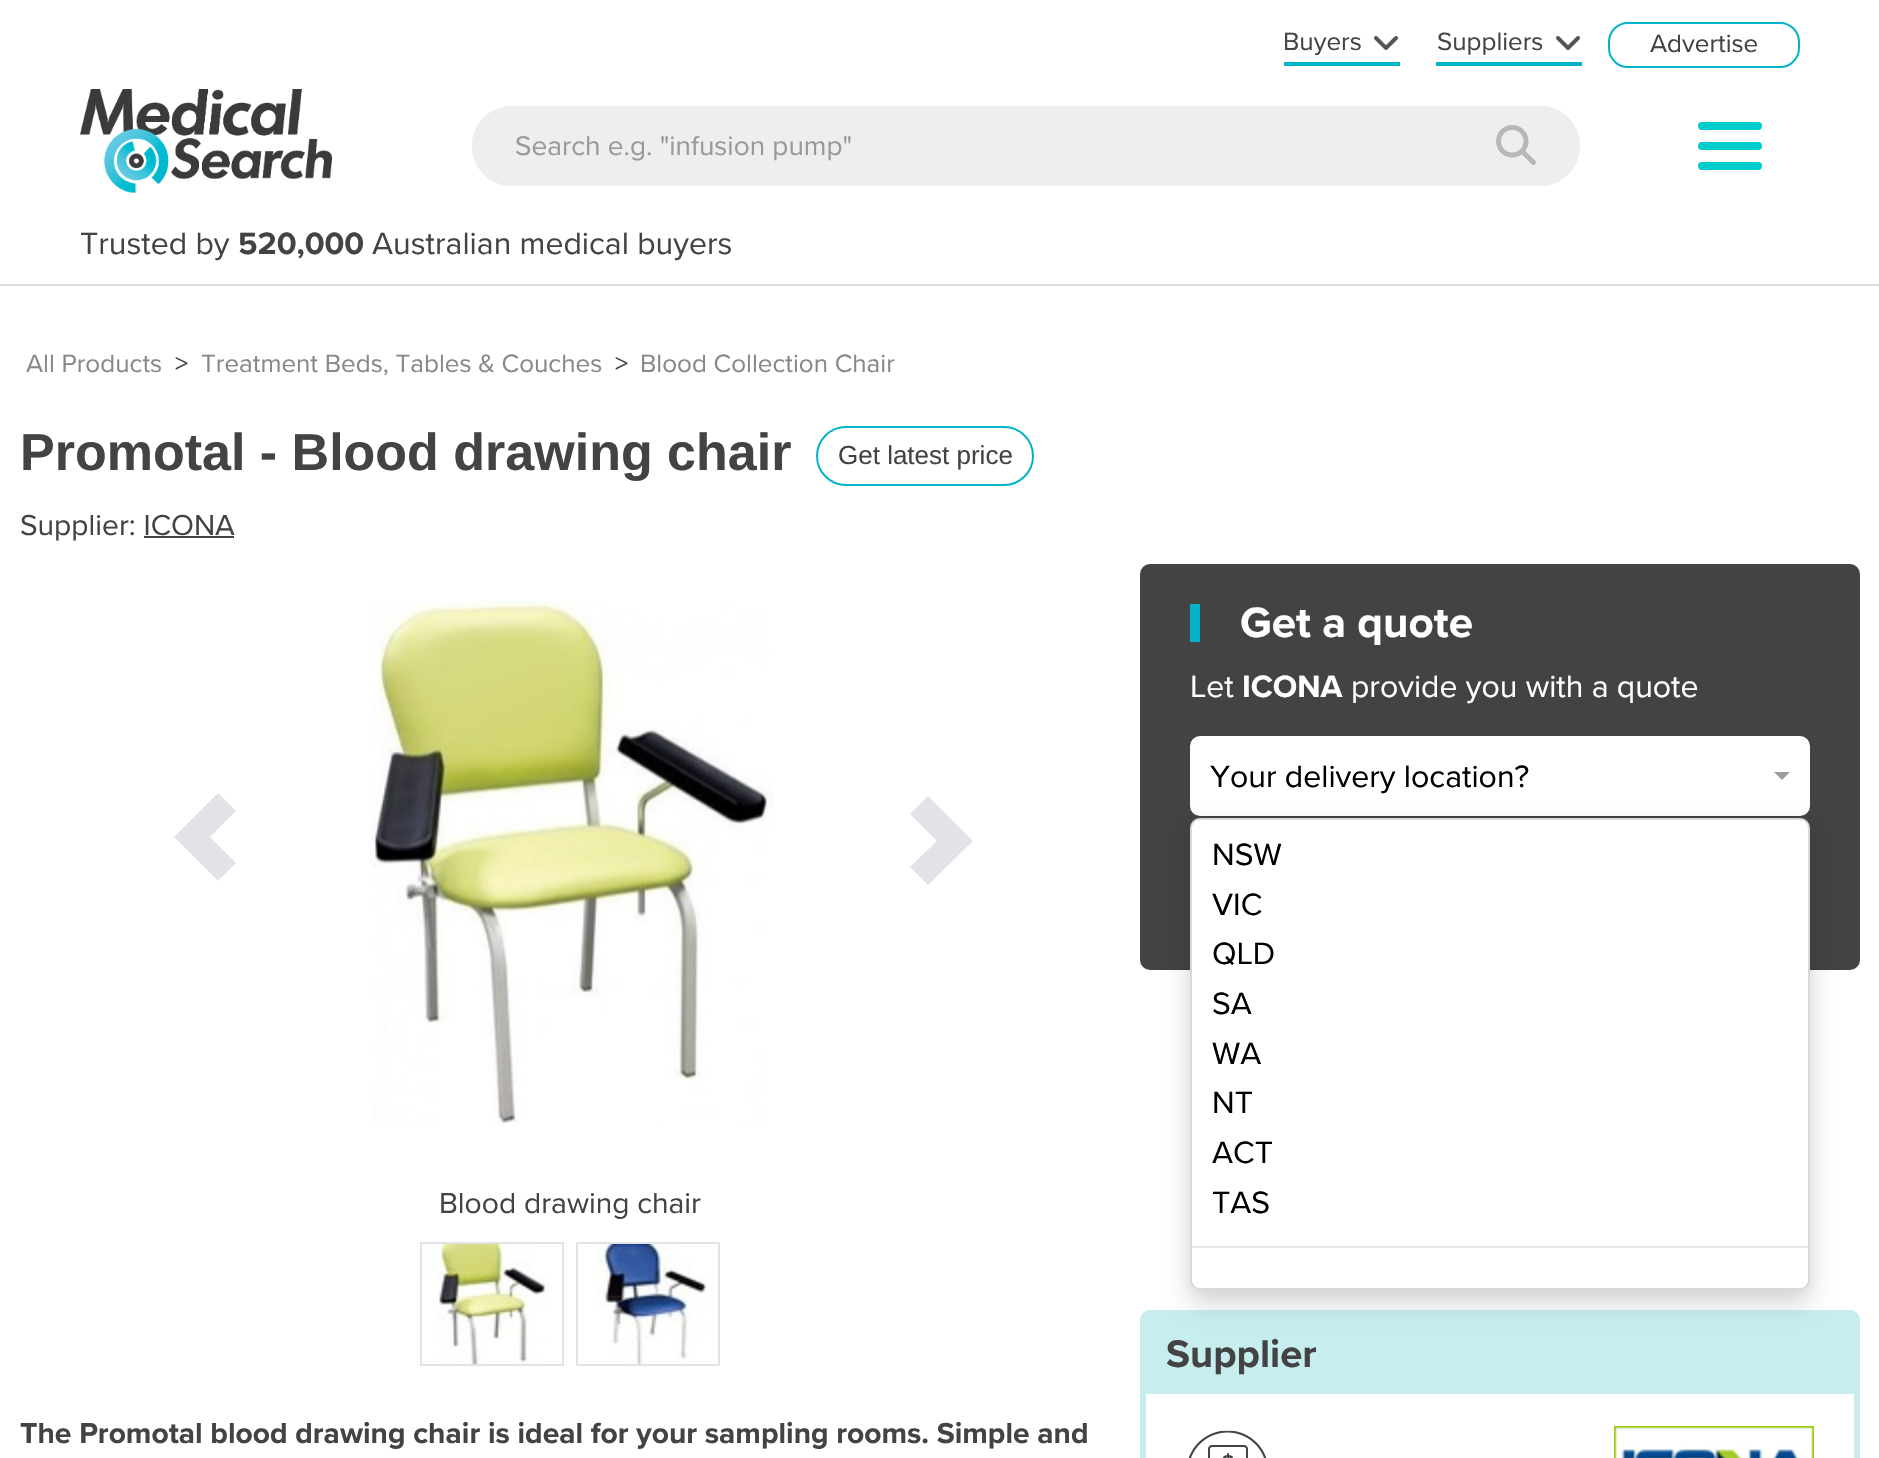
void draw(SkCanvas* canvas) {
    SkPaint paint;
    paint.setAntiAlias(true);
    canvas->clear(0xFFFFFFFF);
    paint.setColor(0xFFDDDDDD);
    canvas->drawRect(SkRect::MakeXYWH(0, 284, 1879, 2), paint);
    paint.setColor(0xFF01B4C8);
    canvas->drawRect(SkRect::MakeXYWH(1284, 62, 116, 4), paint);
    SkFont font1(fontMgr->matchFamilyStyle("Proxima Nova", SkFontStyle::Normal()), 26);
    font1.setSubpixel(true);
    paint.setColor(0xFF434343);
    canvas->drawString("Buyers", 1283, 50, font1, paint);
    canvas->drawImageRect(SkImages::DeferredFromEncodedData(SkData::MakeFromFileName("img1.png")), SkRect::MakeXYWH(1374, 36, 24, 14), SkSamplingOptions());
    paint.setColor(0xFF01B4C8);
    canvas->drawRect(SkRect::MakeXYWH(1436, 62, 146, 4), paint);
    paint.setColor(0xFF434343);
    canvas->drawString("Suppliers", 1437, 50, font1, paint);
    canvas->drawImageRect(SkImages::DeferredFromEncodedData(SkData::MakeFromFileName("img1.png")), SkRect::MakeXYWH(1556, 36, 24, 14), SkSamplingOptions());
    paint.setStyle(SkPaint::kStroke_Style);
    paint.setStrokeWidth(2);
    paint.setColor(0xFF01B4C8);
    canvas->drawRoundRect(SkRect::MakeXYWH(1609, 23, 190, 44), 19, 19, paint);
    paint.setStyle(SkPaint::kFill_Style);
    paint.setColor(0xFF434343);
    canvas->drawString("Advertise", 1650, 52, font1, paint);
    canvas->drawImageRect(SkImages::DeferredFromEncodedData(SkData::MakeFromFileName("img2.png")), SkRect::MakeXYWH(80, 89, 252, 104), SkSamplingOptions());
    paint.setColor(0xFFEEEEEE);
    canvas->drawPath(SkPathBuilder().moveTo(512, 106).lineTo(1486, 106).lineTo(1486, 186).lineTo(512, 186).cubicTo(490, 186, 472, 168, 472, 146).cubicTo(472, 124, 490, 106, 512, 106).close().detach(), paint);
    canvas->drawPath(SkPathBuilder(SkPathFillType::kEvenOdd).moveTo(512, 106).lineTo(1486, 106).lineTo(1486, 186).lineTo(512, 186).cubicTo(490, 186, 472, 168, 472, 146).cubicTo(472, 124, 490, 106, 512, 106).close().moveTo(512, 108).lineTo(1486, 108).lineTo(1486, 184).lineTo(512, 184).cubicTo(491, 184, 474, 167, 474, 146).cubicTo(474, 125, 491, 108, 512, 108).close().detach(), paint);
    SkFont font2(fontMgr->matchFamilyStyle("Proxima Nova", SkFontStyle::Normal()), 28);
    font2.setSubpixel(true);
    paint.setColor(0xFF999999);
    canvas->drawString("Search e.g. \"infusion pump\"", 515, 155, font2, paint);
    paint.setColor(0xFFEEEEEE);
    canvas->drawPath(SkPathBuilder().moveTo(1486, 106).lineTo(1540, 106).cubicTo(1562, 106, 1580, 124, 1580, 146).cubicTo(1580, 168, 1562, 186, 1540, 186).lineTo(1486, 186).close().detach(), paint);
    canvas->drawPath(SkPathBuilder(SkPathFillType::kEvenOdd).moveTo(1486, 106).lineTo(1540, 106).cubicTo(1562, 106, 1580, 124, 1580, 146).cubicTo(1580, 168, 1562, 186, 1540, 186).lineTo(1486, 186).close().moveTo(1486, 108).lineTo(1540, 108).cubicTo(1561, 108, 1578, 125, 1578, 146).cubicTo(1578, 167, 1561, 184, 1540, 184).lineTo(1486, 184).close().detach(), paint);
    canvas->drawImageRect(SkImages::DeferredFromEncodedData(SkData::MakeFromFileName("img3.png")), SkRect::MakeXYWH(1496, 125, 40, 40), SkSamplingOptions());
    paint.setStyle(SkPaint::kStroke_Style);
    paint.setStrokeWidth(8);
    paint.setStrokeCap(SkPaint::kRound_Cap);
    paint.setStrokeJoin(SkPaint::kRound_Join);
    paint.setColor(0xFF00CDCD);
    canvas->drawPath(SkPathBuilder().moveTo(1702, 166).lineTo(1758, 166).detach(), paint);
    canvas->drawPath(SkPathBuilder().moveTo(1702, 146).lineTo(1758, 146).detach(), paint);
    canvas->drawPath(SkPathBuilder().moveTo(1702, 126).lineTo(1758, 126).detach(), paint);
    SkFont font3(fontMgr->matchFamilyStyle("Proxima Nova", SkFontStyle::Normal()), 32);
    font3.setSubpixel(true);
    paint.setStyle(SkPaint::kFill_Style);
    paint.setColor(0xFF434343);
    canvas->drawString("Trusted by", 80, 254, font3, paint);
    SkFont font4(fontMgr->matchFamilyStyle("Proxima Nova", SkFontStyle::Bold()), 32);
    font4.setSubpixel(true);
    canvas->drawString("520,000", 238, 254, font4, paint);
    canvas->drawString("Australian medical buyers", 372, 254, font3, paint);
    paint.setColor(0xFF888888);
    canvas->drawString("All Products", 26, 372, font1, paint);
    paint.setColor(0xFF434343);
    canvas->drawString(">", 175, 372, font1, paint);
    paint.setColor(0xFF888888);
    canvas->drawString("Treatment Beds, Tables & Couches", 201, 372, font1, paint);
    paint.setColor(0xFF434343);
    canvas->drawString(">", 615, 372, font1, paint);
    paint.setColor(0xFF888888);
    canvas->drawString("Blood Collection Chair", 640, 372, font1, paint);
    SkFont font5(fontMgr->matchFamilyStyle("Liberation Sans", SkFontStyle::Bold()), 52);
    font5.setSubpixel(true);
    paint.setColor(0xFF434343);
    canvas->drawString("Promotal - Blood drawing chair", 20, 470, font5, paint);
    paint.setStyle(SkPaint::kStroke_Style);
    paint.setStrokeWidth(2);
    paint.setStrokeCap(SkPaint::kButt_Cap);
    paint.setStrokeJoin(SkPaint::kMiter_Join);
    paint.setColor(0xFF01B4C8);
    canvas->drawRoundRect(SkRect::MakeXYWH(817, 427, 216, 58), 29, 29, paint);
    SkFont font6(fontMgr->matchFamilyStyle("Liberation Sans", SkFontStyle::Normal()), 26);
    font6.setSubpixel(true);
    paint.setStyle(SkPaint::kFill_Style);
    paint.setColor(0xFF434343);
    canvas->drawString("Get latest price", 838, 464, font6, paint);
    SkFont font7(fontMgr->matchFamilyStyle("Proxima Nova", SkFontStyle::Normal()), 30);
    font7.setSubpixel(true);
    canvas->drawString("Supplier: ICONA", 20, 535, font7, paint);
    canvas->drawRect(SkRect::MakeXYWH(144, 536, 90, 2), paint);
    paint.setColor(0xFFE2E3E8);
    canvas->drawPath(SkPathBuilder().moveTo(218, 881).lineTo(236, 863).lineTo(210, 837).lineTo(236, 811).lineTo(218, 793).lineTo(174, 837).close().detach(), paint);
    canvas->drawPath(SkPathBuilder().moveTo(928, 885).lineTo(910, 867).lineTo(937, 841).lineTo(910, 814).lineTo(928, 796).lineTo(973, 841).close().detach(), paint);
    canvas->drawImageRect(SkImages::DeferredFromEncodedData(SkData::MakeFromFileName("img4.png")), SkRect::MakeXYWH(370, 600, 404, 525), SkSamplingOptions());
    paint.setColor(0xFF434343);
    canvas->drawString("Blood drawing chair", 439, 1213, font7, paint);
    paint.setStyle(SkPaint::kStroke_Style);
    paint.setColor(0xFFE2E3E8);
    canvas->drawRect(SkRect::MakeXYWH(421, 1243, 142, 122), paint);
    canvas->drawImageRect(SkImages::DeferredFromEncodedData(SkData::MakeFromFileName("img5.png")), SkRect::MakeXYWH(422, 1244, 128, 120), SkSamplingOptions());
    canvas->drawRect(SkRect::MakeXYWH(577, 1243, 142, 122), paint);
    canvas->drawImageRect(SkImages::DeferredFromEncodedData(SkData::MakeFromFileName("img6.png")), SkRect::MakeXYWH(595, 1244, 112, 120), SkSamplingOptions());
    SkFont font8(fontMgr->matchFamilyStyle("Proxima Nova", SkFontStyle::Bold()), 30);
    font8.setSubpixel(true);
    paint.setStyle(SkPaint::kFill_Style);
    paint.setColor(0xFF434343);
    canvas->drawString("The Promotal blood drawing chair is ideal for your sampling rooms. Simple and", 20, 1443, font8, paint);
    canvas->drawRoundRect(SkRect::MakeXYWH(1140, 564, 720, 406), 10, 10, paint);
    paint.setColor(0xFF01B4C8);
    canvas->drawRect(SkRect::MakeXYWH(1190, 604, 10, 38), paint);
    SkFont font9(fontMgr->matchFamilyStyle("Proxima Nova", SkFontStyle::Bold()), 44);
    font9.setSubpixel(true);
    paint.setColor(0xFFFFFFFF);
    canvas->drawString("Get a quote", 1240, 637, font9, paint);
    canvas->drawString("Let", 1190, 697, font3, paint);
    canvas->drawString("ICONA", 1242, 697, font4, paint);
    canvas->drawString("provide you with a quote", 1351, 697, font3, paint);
    canvas->drawRoundRect(SkRect::MakeXYWH(1190, 736, 620, 80), 10, 10, paint);
    paint.setColor(0xFF000000);
    canvas->drawString("Your delivery location?", 1210, 787, font3, paint);
    paint.setColor(0xFF9D9D9D);
    canvas->drawPath(SkPathBuilder().moveTo(1774, 772).lineTo(1790, 772).lineTo(1782, 780).close().detach(), paint);
    paint.setStyle(SkPaint::kStroke_Style);
    paint.setStrokeWidth(6);
    paint.setColor(0xFFC7EDEF);
    canvas->drawRoundRect(SkRect::MakeXYWH(1143, 1313, 714, 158), 7, 7, paint);
    paint.setStyle(SkPaint::kFill_Style);
    canvas->drawRect(SkRect::MakeXYWH(1146, 1316, 708, 78), paint);
    paint.setColor(0x2E000000);
    paint.setMaskFilter(SkMaskFilter::MakeBlur(kNormal_SkBlurStyle, 12));
    canvas->drawRoundRect(SkRect::MakeXYWH(1190, 830, 620, 472), 10, 10, paint);
    paint.setMaskFilter(nullptr);
    paint.setColor(0xFFFFFFFF);
    canvas->drawRoundRect(SkRect::MakeXYWH(1190, 818, 620, 472), 10, 10, paint);
    paint.setStyle(SkPaint::kStroke_Style);
    paint.setStrokeWidth(2);
    paint.setColor(0x26000000);
    canvas->drawRoundRect(SkRect::MakeXYWH(1191, 819, 618, 470), 9, 9, paint);
    paint.setStyle(SkPaint::kFill_Style);
    paint.setColor(0xFF000000);
    canvas->drawString("NSW", 1212, 865, font3, paint);
    canvas->drawString("VIC", 1212, 915, font3, paint);
    canvas->drawString("QLD", 1212, 964, font3, paint);
    canvas->drawString("SA", 1212, 1014, font3, paint);
    canvas->drawString("WA", 1212, 1064, font3, paint);
    canvas->drawString("NT", 1212, 1113, font3, paint);
    canvas->drawString("ACT", 1212, 1163, font3, paint);
    canvas->drawString("TAS", 1212, 1213, font3, paint);
    paint.setColor(0xFFE5E5E5);
    canvas->drawRect(SkRect::MakeXYWH(1192, 1246, 616, 2), paint);
    SkFont font10(fontMgr->matchFamilyStyle("Proxima Nova", SkFontStyle::Bold()), 40);
    font10.setSubpixel(true);
    paint.setColor(0xFF434343);
    canvas->drawString("Supplier", 1166, 1367, font10, paint);
    canvas->drawImageRect(SkImages::DeferredFromEncodedData(SkData::MakeFromFileName("img7.png")), SkRect::MakeXYWH(1188, 1430, 79, 28), SkSamplingOptions());
    canvas->drawImageRect(SkImages::DeferredFromEncodedData(SkData::MakeFromFileName("img8.png")), SkRect::MakeXYWH(1614, 1426, 200, 32), SkSamplingOptions());
}
